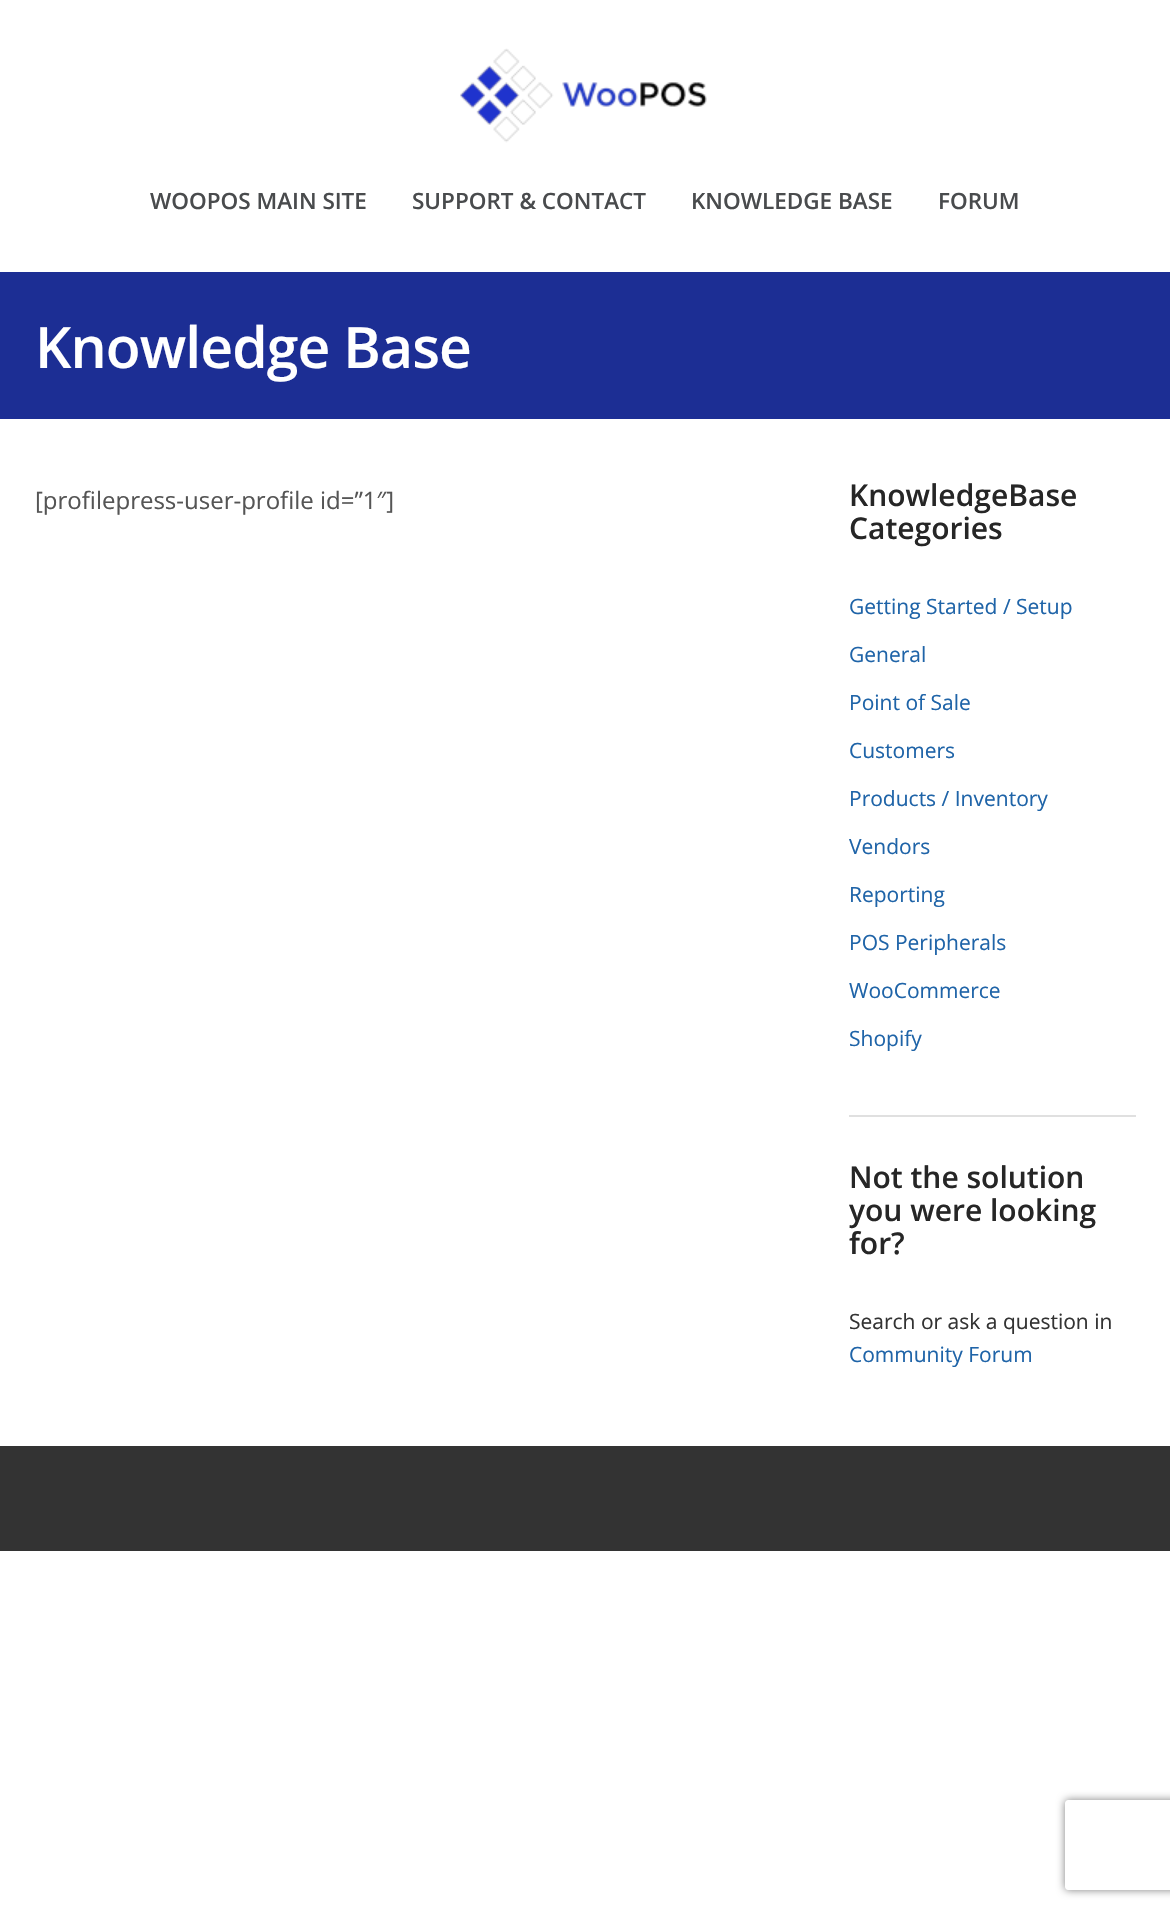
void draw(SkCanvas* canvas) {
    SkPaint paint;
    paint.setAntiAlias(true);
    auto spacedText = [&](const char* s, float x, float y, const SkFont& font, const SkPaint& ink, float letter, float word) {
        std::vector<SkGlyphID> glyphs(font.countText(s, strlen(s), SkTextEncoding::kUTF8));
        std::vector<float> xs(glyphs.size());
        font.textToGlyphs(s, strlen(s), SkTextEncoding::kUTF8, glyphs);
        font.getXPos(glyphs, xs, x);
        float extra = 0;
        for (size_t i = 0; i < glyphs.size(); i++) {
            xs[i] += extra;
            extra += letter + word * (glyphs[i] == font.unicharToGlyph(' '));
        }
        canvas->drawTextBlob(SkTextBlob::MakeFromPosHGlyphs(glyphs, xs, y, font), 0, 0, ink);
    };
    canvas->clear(0xFFFFFFFF);
    canvas->drawImageRect(SkImages::DeferredFromEncodedData(SkData::MakeFromFileName("img1.png")), SkRect::MakeXYWH(460, 48, 247, 95), SkSamplingOptions());
    SkFont font1(fontMgr->matchFamilyStyle("Open Sans", SkFontStyle(600, SkFontStyle::kNormal_Width, SkFontStyle::kUpright_Slant)), 22.5f);
    font1.setSubpixel(true);
    paint.setColor(0xFF494B4D);
    canvas->drawString("WOOPOS MAIN SITE", 150, 209, font1, paint);
    canvas->drawString("SUPPORT & CONTACT", 412, 209, font1, paint);
    canvas->drawString("KNOWLEDGE BASE", 691, 209, font1, paint);
    canvas->drawString("FORUM", 938, 209, font1, paint);
    paint.setColor(0xFF1C2E94);
    canvas->drawRect(SkRect::MakeXYWH(0, 272, 1170, 147), paint);
    SkFont font2(fontMgr->matchFamilyStyle("Open Sans", SkFontStyle(600, SkFontStyle::kNormal_Width, SkFontStyle::kUpright_Slant)), 57);
    font2.setSubpixel(true);
    paint.setColor(0xFFFFFFFF);
    spacedText("Knowledge Base", 35, 368, font2, paint, -0.9f, 0);
    SkFont font3(fontMgr->matchFamilyStyle("Open Sans", SkFontStyle::Normal()), 24);
    font3.setSubpixel(true);
    paint.setColor(0xFF555555);
    canvas->drawString("[profilepress-user-profile id=”1″]", 35, 509, font3, paint);
    paint.setColor(0xFFE0E0E0);
    canvas->drawRect(SkRect::MakeXYWH(849, 1115, 287, 2), paint);
    SkFont font4(fontMgr->matchFamilyStyle("Open Sans", SkFontStyle(600, SkFontStyle::kNormal_Width, SkFontStyle::kUpright_Slant)), 30);
    font4.setSubpixel(true);
    paint.setColor(0xFF262626);
    canvas->drawString("KnowledgeBase", 849, 506, font4, paint);
    canvas->drawString("Categories", 849, 539, font4, paint);
    SkFont font5(fontMgr->matchFamilyStyle("Open Sans", SkFontStyle::Normal()), 21);
    font5.setSubpixel(true);
    paint.setColor(0xFF1F64A8);
    canvas->drawString("Getting Started / Setup", 849, 614, font5, paint);
    canvas->drawString("General", 849, 662, font5, paint);
    canvas->drawString("Point of Sale", 849, 710, font5, paint);
    canvas->drawString("Customers", 849, 758, font5, paint);
    canvas->drawString("Products / Inventory", 849, 806, font5, paint);
    canvas->drawString("Vendors", 849, 854, font5, paint);
    canvas->drawString("Reporting", 849, 902, font5, paint);
    canvas->drawString("POS Peripherals", 849, 950, font5, paint);
    canvas->drawString("WooCommerce", 849, 998, font5, paint);
    canvas->drawString("Shopify", 849, 1046, font5, paint);
    paint.setColor(0xFF262626);
    canvas->drawString("Not the solution", 849, 1188, font4, paint);
    canvas->drawString("you were looking", 849, 1221, font4, paint);
    canvas->drawString("for?", 849, 1254, font4, paint);
    paint.setColor(0xFF333333);
    canvas->drawString("Search or ask a question in", 849, 1329, font5, paint);
    paint.setColor(0xFF1F64A8);
    canvas->drawString("Community Forum", 849, 1362, font5, paint);
    paint.setColor(0xFF333333);
    canvas->drawRect(SkRect::MakeXYWH(0, 1446, 1170, 105), paint);
    canvas->save();
    canvas->clipPath(SkPathBuilder(SkPathFillType::kEvenOdd).moveTo(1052, 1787).lineTo(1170, 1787).lineTo(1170, 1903).lineTo(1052, 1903).close().moveTo(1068, 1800).lineTo(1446, 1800).cubicTo(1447.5f, 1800, 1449, 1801.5f, 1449, 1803).lineTo(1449, 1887).cubicTo(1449, 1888.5f, 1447.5f, 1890, 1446, 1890).lineTo(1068, 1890).cubicTo(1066.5f, 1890, 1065, 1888.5f, 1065, 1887).lineTo(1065, 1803).cubicTo(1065, 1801.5f, 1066.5f, 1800, 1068, 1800).close().detach(), true);
    paint.setColor(0xFF808080);
    paint.setMaskFilter(SkMaskFilter::MakeBlur(kNormal_SkBlurStyle, 4));
    canvas->drawRoundRect(SkRect::MakeXYWH(1065, 1800, 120, 90), 3, 3, paint);
    paint.setMaskFilter(nullptr);
    canvas->restore();
}
